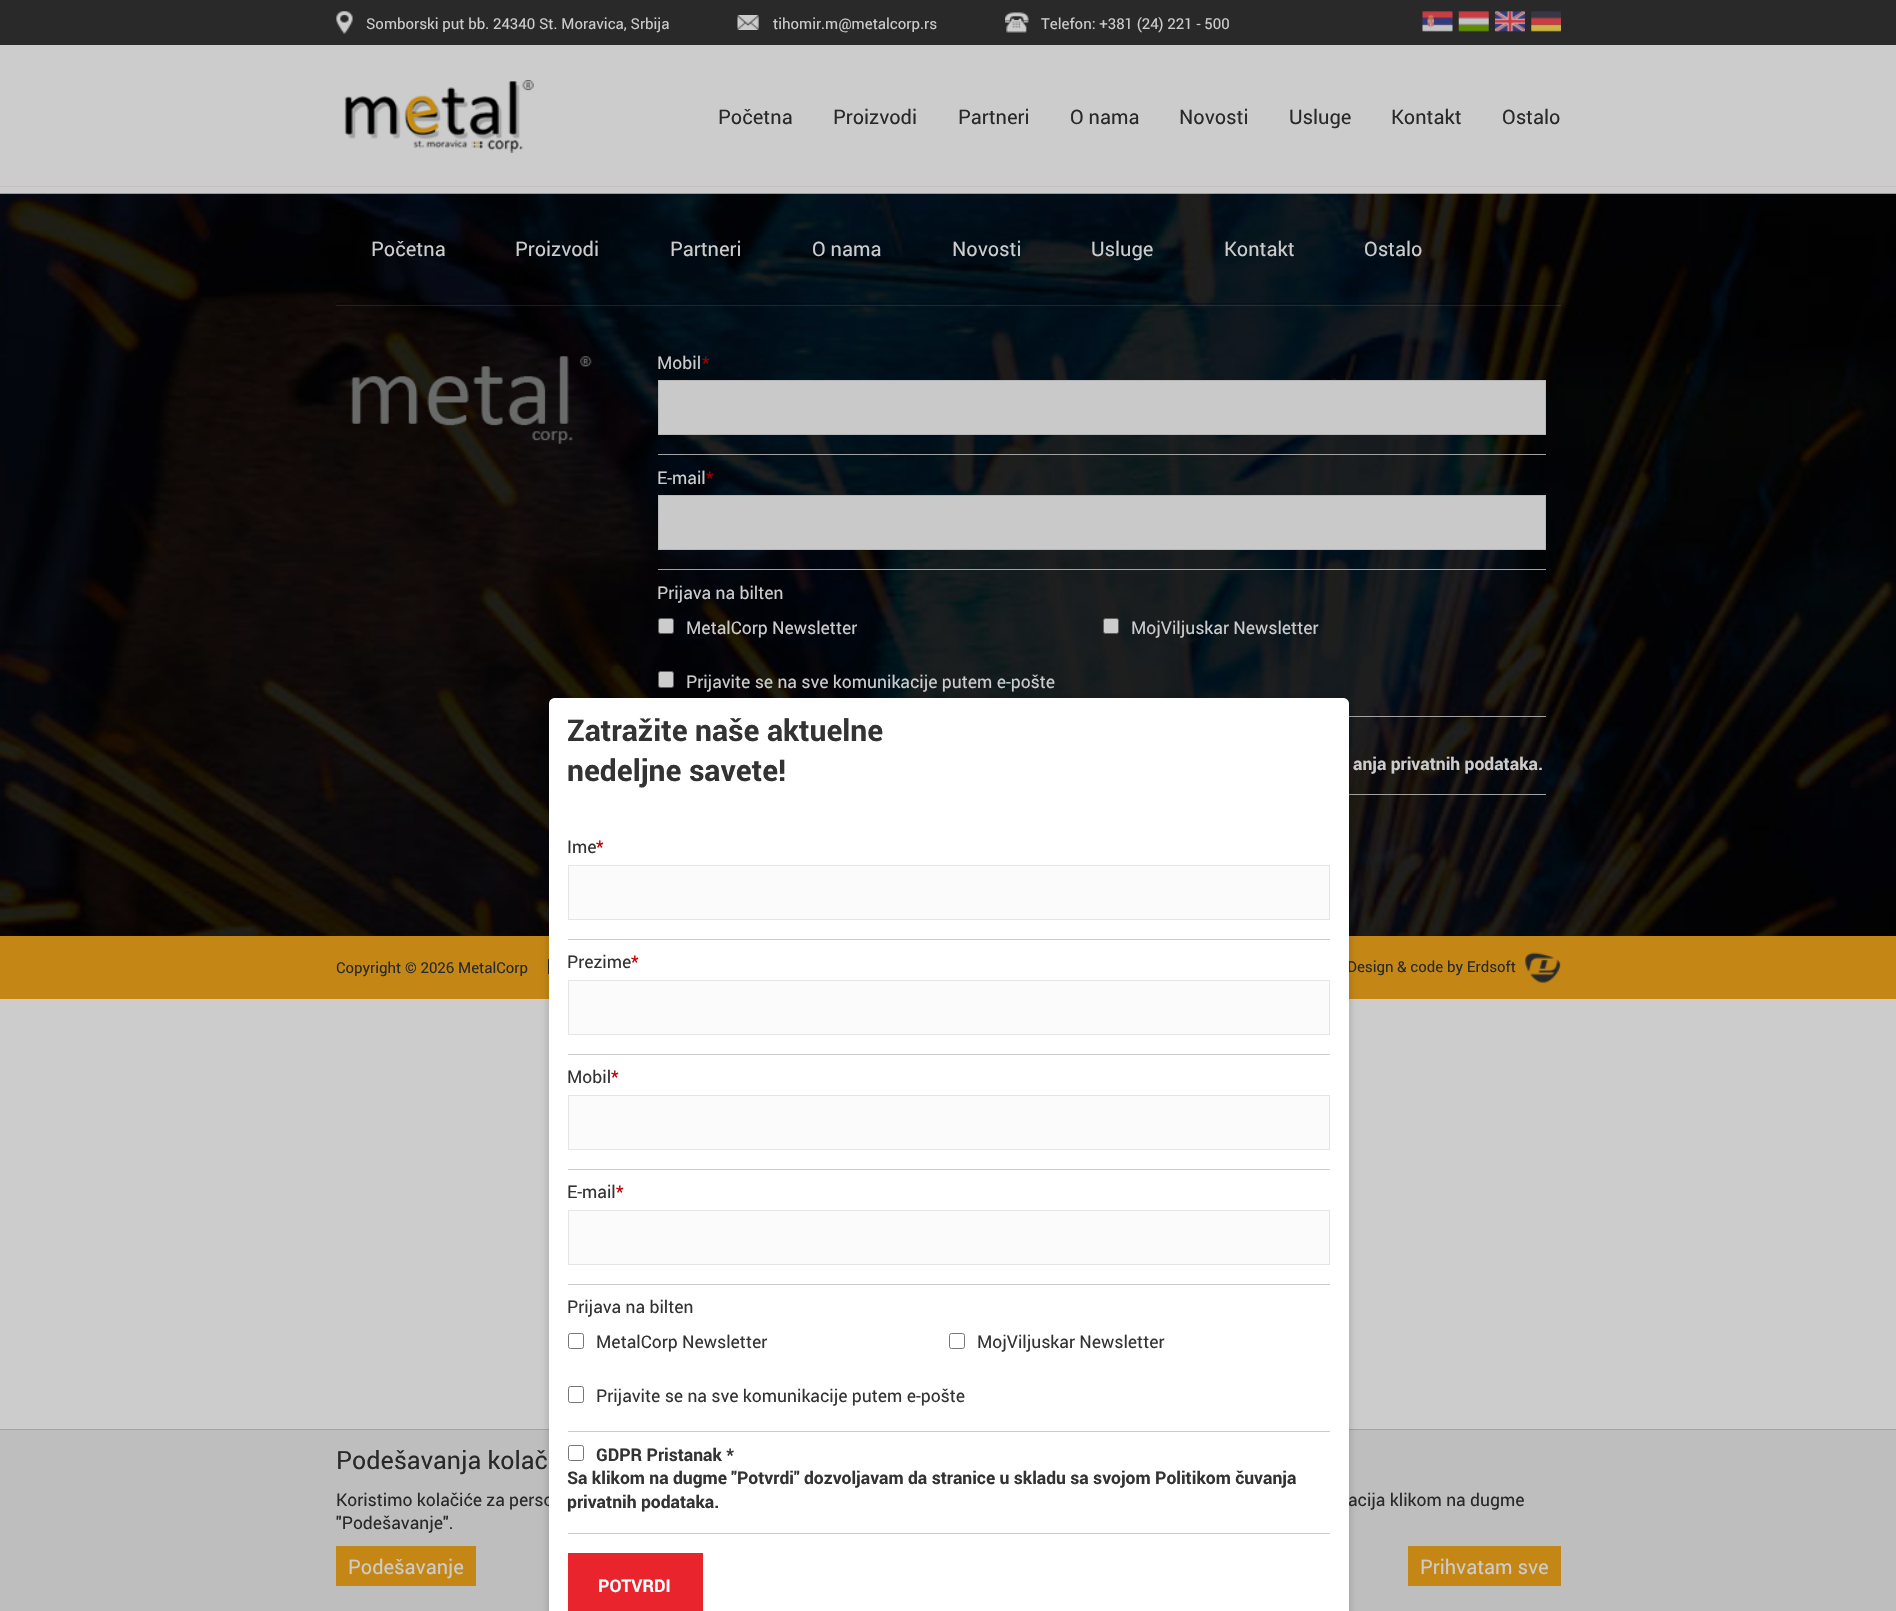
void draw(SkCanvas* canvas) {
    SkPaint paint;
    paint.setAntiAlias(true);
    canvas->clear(0xFFCCCCCC);
    paint.setColor(0xFF292929);
    canvas->drawRect(SkRect::MakeXYWH(0, 0, 1896, 45), paint);
    canvas->drawImageRect(SkImages::DeferredFromEncodedData(SkData::MakeFromFileName("img1.png")), SkRect::MakeXYWH(336, 11, 17, 23), SkSamplingOptions());
    SkFont font1(fontMgr->matchFamilyStyle("Roboto", SkFontStyle::Normal()), 15);
    font1.setSubpixel(true);
    paint.setColor(0xFFCCCCCC);
    canvas->drawString("Somborski put bb. 24340 St. Moravica, Srbija", 366, 29, font1, paint);
    canvas->drawImageRect(SkImages::DeferredFromEncodedData(SkData::MakeFromFileName("img2.png")), SkRect::MakeXYWH(737, 15, 22, 15), SkSamplingOptions());
    canvas->drawString("tihomir.m@metalcorp.rs", 773, 29, font1, paint);
    canvas->drawImageRect(SkImages::DeferredFromEncodedData(SkData::MakeFromFileName("img3.png")), SkRect::MakeXYWH(1005, 12, 24, 21), SkSamplingOptions());
    canvas->drawString("Telefon: +381 (24) 221 - 500", 1041, 29, font1, paint);
    canvas->drawImageRect(SkImages::DeferredFromEncodedData(SkData::MakeFromFileName("img4.png")), SkRect::MakeXYWH(1422, 11, 31, 21), SkSamplingOptions());
    canvas->drawImageRect(SkImages::DeferredFromEncodedData(SkData::MakeFromFileName("img5.png")), SkRect::MakeXYWH(1458, 11, 31, 21), SkSamplingOptions());
    canvas->drawImageRect(SkImages::DeferredFromEncodedData(SkData::MakeFromFileName("img6.png")), SkRect::MakeXYWH(1495, 11, 30, 21), SkSamplingOptions());
    canvas->drawImageRect(SkImages::DeferredFromEncodedData(SkData::MakeFromFileName("img7.png")), SkRect::MakeXYWH(1531, 11, 30, 21), SkSamplingOptions());
    paint.setColor(0xFFC6BFBF);
    canvas->drawRect(SkRect::MakeXYWH(0, 186, 1896, 1), paint);
    canvas->drawImageRect(SkImages::DeferredFromEncodedData(SkData::MakeFromFileName("img8.png")), SkRect::MakeXYWH(344, 80, 190, 73), SkSamplingOptions());
    SkFont font2(fontMgr->matchFamilyStyle("Roboto", SkFontStyle::Normal()), 20);
    font2.setSubpixel(true);
    paint.setColor(0xFF292929);
    canvas->drawString("Početna", 718, 124, font2, paint);
    canvas->drawString("Proizvodi", 833, 124, font2, paint);
    canvas->drawString("Partneri", 958, 124, font2, paint);
    canvas->drawString("O nama", 1070, 124, font2, paint);
    canvas->drawString("Novosti", 1179, 124, font2, paint);
    canvas->drawString("Usluge", 1289, 124, font2, paint);
    canvas->drawString("Kontakt", 1391, 124, font2, paint);
    canvas->drawString("Ostalo", 1502, 124, font2, paint);
    canvas->drawImageRect(SkImages::DeferredFromEncodedData(SkData::MakeFromFileName("img9.png")), SkRect::MakeXYWH(0, 193, 1896, 743), SkSamplingOptions());
    paint.setColor(0x21CCCCCC);
    canvas->drawRect(SkRect::MakeXYWH(336, 305, 1225, 1), paint);
    paint.setColor(0xFFCCCCCC);
    canvas->drawString("Početna", 371, 256, font2, paint);
    canvas->drawString("Proizvodi", 515, 256, font2, paint);
    canvas->drawString("Partneri", 670, 256, font2, paint);
    canvas->drawString("O nama", 812, 256, font2, paint);
    canvas->drawString("Novosti", 952, 256, font2, paint);
    canvas->drawString("Usluge", 1091, 256, font2, paint);
    canvas->drawString("Kontakt", 1224, 256, font2, paint);
    canvas->drawString("Ostalo", 1364, 256, font2, paint);
    paint.setColor(0x40000000);
    canvas->drawRect(SkRect::MakeXYWH(336, 303, 1225, 1), paint);
    canvas->drawImageRect(SkImages::DeferredFromEncodedData(SkData::MakeFromFileName("img10.png")), SkRect::MakeXYWH(351, 356, 241, 88), SkSamplingOptions());
    paint.setColor(0xFFA3A3A3);
    canvas->drawRect(SkRect::MakeXYWH(658, 454, 888, 1), paint);
    SkFont font3(fontMgr->matchFamilyStyle("Roboto", SkFontStyle::Normal()), 17.5f);
    font3.setSubpixel(true);
    paint.setColor(0xFFCCCCCC);
    canvas->drawString("Mobil", 657, 369, font3, paint);
    paint.setColor(0xFF9A0000);
    canvas->drawString("*", 702, 369, font3, paint);
    paint.setColor(0xFFC9C9C9);
    canvas->drawRect(SkRect::MakeXYWH(658.5f, 380.5f, 887, 54), paint);
    paint.setStyle(SkPaint::kStroke_Style);
    paint.setStrokeWidth(1);
    paint.setColor(0xFFB7B7B7);
    canvas->drawRect(SkRect::MakeXYWH(658.5f, 380.5f, 887, 54), paint);
    paint.setStyle(SkPaint::kFill_Style);
    paint.setColor(0xFFA3A3A3);
    canvas->drawRect(SkRect::MakeXYWH(658, 569, 888, 1), paint);
    paint.setColor(0xFFCCCCCC);
    canvas->drawString("E-mail", 657, 484, font3, paint);
    paint.setColor(0xFF9A0000);
    canvas->drawString("*", 706, 484, font3, paint);
    paint.setColor(0xFFC9C9C9);
    canvas->drawRect(SkRect::MakeXYWH(658.5f, 495.5f, 887, 54), paint);
    paint.setStyle(SkPaint::kStroke_Style);
    paint.setColor(0xFFB7B7B7);
    canvas->drawRect(SkRect::MakeXYWH(658.5f, 495.5f, 887, 54), paint);
    paint.setStyle(SkPaint::kFill_Style);
    paint.setColor(0xFFA3A3A3);
    canvas->drawRect(SkRect::MakeXYWH(1349, 716, 197, 1), paint);
    paint.setColor(0xFFCCCCCC);
    canvas->drawString("Prijava na bilten", 657, 599, font3, paint);
    canvas->drawRoundRect(SkRect::MakeXYWH(658.5f, 618.5f, 15, 15), 2, 2, paint);
    paint.setStyle(SkPaint::kStroke_Style);
    paint.setColor(0xFF5E5E5E);
    canvas->drawRoundRect(SkRect::MakeXYWH(658.5f, 618.5f, 15, 15), 2, 2, paint);
    paint.setStyle(SkPaint::kFill_Style);
    paint.setColor(0xFFCCCCCC);
    canvas->drawString("MetalCorp Newsletter", 686, 634, font3, paint);
    canvas->drawRoundRect(SkRect::MakeXYWH(1103.5f, 618.5f, 15, 15), 2, 2, paint);
    paint.setStyle(SkPaint::kStroke_Style);
    paint.setColor(0xFF5E5E5E);
    canvas->drawRoundRect(SkRect::MakeXYWH(1103.5f, 618.5f, 15, 15), 2, 2, paint);
    paint.setStyle(SkPaint::kFill_Style);
    paint.setColor(0xFFCCCCCC);
    canvas->drawString("MojViljuskar Newsletter", 1131, 634, font3, paint);
    canvas->drawRoundRect(SkRect::MakeXYWH(658.5f, 671.5f, 15, 16), 2, 2, paint);
    paint.setStyle(SkPaint::kStroke_Style);
    paint.setColor(0xFF5E5E5E);
    canvas->drawRoundRect(SkRect::MakeXYWH(658.5f, 671.5f, 15, 16), 2, 2, paint);
    paint.setStyle(SkPaint::kFill_Style);
    paint.setColor(0xFFCCCCCC);
    canvas->drawString("Prijavite se na sve komunikacije putem e-pošte", 686, 688, font3, paint);
    paint.setColor(0xFFA3A3A3);
    canvas->drawRect(SkRect::MakeXYWH(1349, 794, 197, 1), paint);
    SkFont font4(fontMgr->matchFamilyStyle("Roboto", SkFontStyle::Bold()), 17.5f);
    font4.setSubpixel(true);
    paint.setColor(0xFFCCCCCC);
    canvas->drawString("anja privatnih podataka.", 1353, 770, font4, paint);
    paint.setColor(0xFFC48716);
    canvas->drawRect(SkRect::MakeXYWH(0, 936, 1896, 63), paint);
    paint.setColor(0xFF292929);
    canvas->drawRect(SkRect::MakeXYWH(548, 959, 1, 15), paint);
    canvas->drawString("Copyright © 2026 MetalCorp", 336, 973, font1, paint);
    canvas->drawString("Design & code by Erdsoft", 1347, 972, font1, paint);
    canvas->drawImageRect(SkImages::DeferredFromEncodedData(SkData::MakeFromFileName("img11.png")), SkRect::MakeXYWH(1525, 952, 36, 32), SkSamplingOptions());
    paint.setColor(0xFFBEBEBE);
    canvas->drawRect(SkRect::MakeXYWH(0, 1430, 1896, 181), paint);
    paint.setColor(0xFFA3A3A3);
    canvas->drawRect(SkRect::MakeXYWH(0, 1429, 1896, 1), paint);
    paint.setColor(0x33000000);
    paint.setMaskFilter(SkMaskFilter::MakeBlur(kNormal_SkBlurStyle, 4));
    canvas->drawRoundRect(SkRect::MakeXYWH(549, 700, 800, 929), 6, 6, paint);
    paint.setMaskFilter(nullptr);
    paint.setColor(0xFF292929);
    canvas->drawString("Koristimo kolačiće za perso", 336, 1506, font3, paint);
    canvas->drawString("acija klikom na dugme", 1348, 1506, font3, paint);
    paint.setColor(0xFFFFFFFF);
    canvas->drawPath(SkPathBuilder().moveTo(555, 698).lineTo(1343, 698).cubicTo(1346.5f, 698, 1349, 700.5f, 1349, 704).lineTo(1349, 1611).lineTo(549, 1611).lineTo(549, 704).cubicTo(549, 700.5f, 551.5f, 698, 555, 698).close().detach(), paint);
    SkFont font5(fontMgr->matchFamilyStyle("Roboto", SkFontStyle::Bold()), 30);
    font5.setSubpixel(true);
    paint.setColor(0xFF333333);
    canvas->drawString("Zatražite naše aktuelne", 567, 741, font5, paint);
    canvas->drawString("nedeljne savete!", 567, 781, font5, paint);
    paint.setColor(0xFFCCCCCC);
    canvas->drawRect(SkRect::MakeXYWH(568, 939, 762, 1), paint);
    paint.setColor(0xFF333333);
    canvas->drawString("Ime", 567, 853, font3, paint);
    paint.setColor(0xFFC10000);
    canvas->drawString("*", 596, 853, font3, paint);
    paint.setColor(0xFFFBFBFB);
    canvas->drawRect(SkRect::MakeXYWH(568.5f, 865.5f, 761, 54), paint);
    paint.setStyle(SkPaint::kStroke_Style);
    paint.setColor(0xFFE5E5E5);
    canvas->drawRect(SkRect::MakeXYWH(568.5f, 865.5f, 761, 54), paint);
    paint.setStyle(SkPaint::kFill_Style);
    paint.setColor(0xFFCCCCCC);
    canvas->drawRect(SkRect::MakeXYWH(568, 1054, 762, 1), paint);
    paint.setColor(0xFF333333);
    canvas->drawString("Prezime", 567, 968, font3, paint);
    paint.setColor(0xFFC10000);
    canvas->drawString("*", 631, 968, font3, paint);
    paint.setColor(0xFFFBFBFB);
    canvas->drawRect(SkRect::MakeXYWH(568.5f, 980.5f, 761, 54), paint);
    paint.setStyle(SkPaint::kStroke_Style);
    paint.setColor(0xFFE5E5E5);
    canvas->drawRect(SkRect::MakeXYWH(568.5f, 980.5f, 761, 54), paint);
    paint.setStyle(SkPaint::kFill_Style);
    paint.setColor(0xFFCCCCCC);
    canvas->drawRect(SkRect::MakeXYWH(568, 1169, 762, 1), paint);
    paint.setColor(0xFF333333);
    canvas->drawString("Mobil", 567, 1083, font3, paint);
    paint.setColor(0xFFC10000);
    canvas->drawString("*", 611, 1083, font3, paint);
    paint.setColor(0xFFFBFBFB);
    canvas->drawRect(SkRect::MakeXYWH(568.5f, 1095.5f, 761, 54), paint);
    paint.setStyle(SkPaint::kStroke_Style);
    paint.setColor(0xFFE5E5E5);
    canvas->drawRect(SkRect::MakeXYWH(568.5f, 1095.5f, 761, 54), paint);
    paint.setStyle(SkPaint::kFill_Style);
    paint.setColor(0xFFCCCCCC);
    canvas->drawRect(SkRect::MakeXYWH(568, 1284, 762, 1), paint);
    paint.setColor(0xFF333333);
    canvas->drawString("E-mail", 567, 1198, font3, paint);
    paint.setColor(0xFFC10000);
    canvas->drawString("*", 616, 1198, font3, paint);
    paint.setColor(0xFFFBFBFB);
    canvas->drawRect(SkRect::MakeXYWH(568.5f, 1210.5f, 761, 54), paint);
    paint.setStyle(SkPaint::kStroke_Style);
    paint.setColor(0xFFE5E5E5);
    canvas->drawRect(SkRect::MakeXYWH(568.5f, 1210.5f, 761, 54), paint);
    paint.setStyle(SkPaint::kFill_Style);
    paint.setColor(0xFFCCCCCC);
    canvas->drawRect(SkRect::MakeXYWH(568, 1431, 762, 1), paint);
    paint.setColor(0xFF333333);
    canvas->drawString("Prijava na bilten", 567, 1313, font3, paint);
    paint.setStyle(SkPaint::kStroke_Style);
    paint.setColor(0xFF767676);
    canvas->drawRoundRect(SkRect::MakeXYWH(568.5f, 1333.5f, 15, 15), 2, 2, paint);
    paint.setStyle(SkPaint::kFill_Style);
    paint.setColor(0xFF333333);
    canvas->drawString("MetalCorp Newsletter", 596, 1348, font3, paint);
    paint.setStyle(SkPaint::kStroke_Style);
    paint.setColor(0xFF767676);
    canvas->drawRoundRect(SkRect::MakeXYWH(949.5f, 1333.5f, 15, 15), 2, 2, paint);
    paint.setStyle(SkPaint::kFill_Style);
    paint.setColor(0xFF333333);
    canvas->drawString("MojViljuskar Newsletter", 977, 1348, font3, paint);
    paint.setStyle(SkPaint::kStroke_Style);
    paint.setColor(0xFF767676);
    canvas->drawRoundRect(SkRect::MakeXYWH(568.5f, 1386.5f, 15, 16), 2, 2, paint);
    paint.setStyle(SkPaint::kFill_Style);
    paint.setColor(0xFF333333);
    canvas->drawString("Prijavite se na sve komunikacije putem e-pošte", 596, 1402, font3, paint);
    paint.setColor(0xFFCCCCCC);
    canvas->drawRect(SkRect::MakeXYWH(568, 1533, 762, 1), paint);
    paint.setStyle(SkPaint::kStroke_Style);
    paint.setColor(0xFF767676);
    canvas->drawRoundRect(SkRect::MakeXYWH(568.5f, 1445.5f, 15, 15), 2, 2, paint);
    paint.setStyle(SkPaint::kFill_Style);
    paint.setColor(0xFF333333);
    canvas->drawString("GDPR Pristanak *", 596, 1461, font4, paint);
    canvas->drawString("Sa klikom na dugme \"Potvrdi\" dozvoljavam da stranice u skladu sa svojom Politikom čuvanja", 567, 1484, font4, paint);
    canvas->drawString("privatnih podataka.", 567, 1508, font4, paint);
    paint.setColor(0xFFE9242D);
    canvas->drawRect(SkRect::MakeXYWH(568, 1553, 135, 58), paint);
    paint.setColor(0xFFFFFFFF);
    canvas->drawString("POTVRDI", 598, 1592, font4, paint);
    SkFont font6(fontMgr->matchFamilyStyle("Roboto", SkFontStyle::Normal()), 25);
    font6.setSubpixel(true);
    paint.setColor(0xFF292929);
    canvas->drawString("Podešavanja kolač", 336, 1469, font6, paint);
    canvas->drawString("\"Podešavanje\".", 336, 1529, font3, paint);
    paint.setColor(0xFFC48716);
    canvas->drawRect(SkRect::MakeXYWH(336, 1546, 140, 40), paint);
    paint.setColor(0xFFCCCCCC);
    canvas->drawString("Podešavanje", 348, 1574, font2, paint);
    paint.setColor(0xFFC48716);
    canvas->drawRect(SkRect::MakeXYWH(1408, 1546, 153, 40), paint);
    paint.setColor(0xFFCCCCCC);
    canvas->drawString("Prihvatam sve", 1420, 1574, font2, paint);
}
